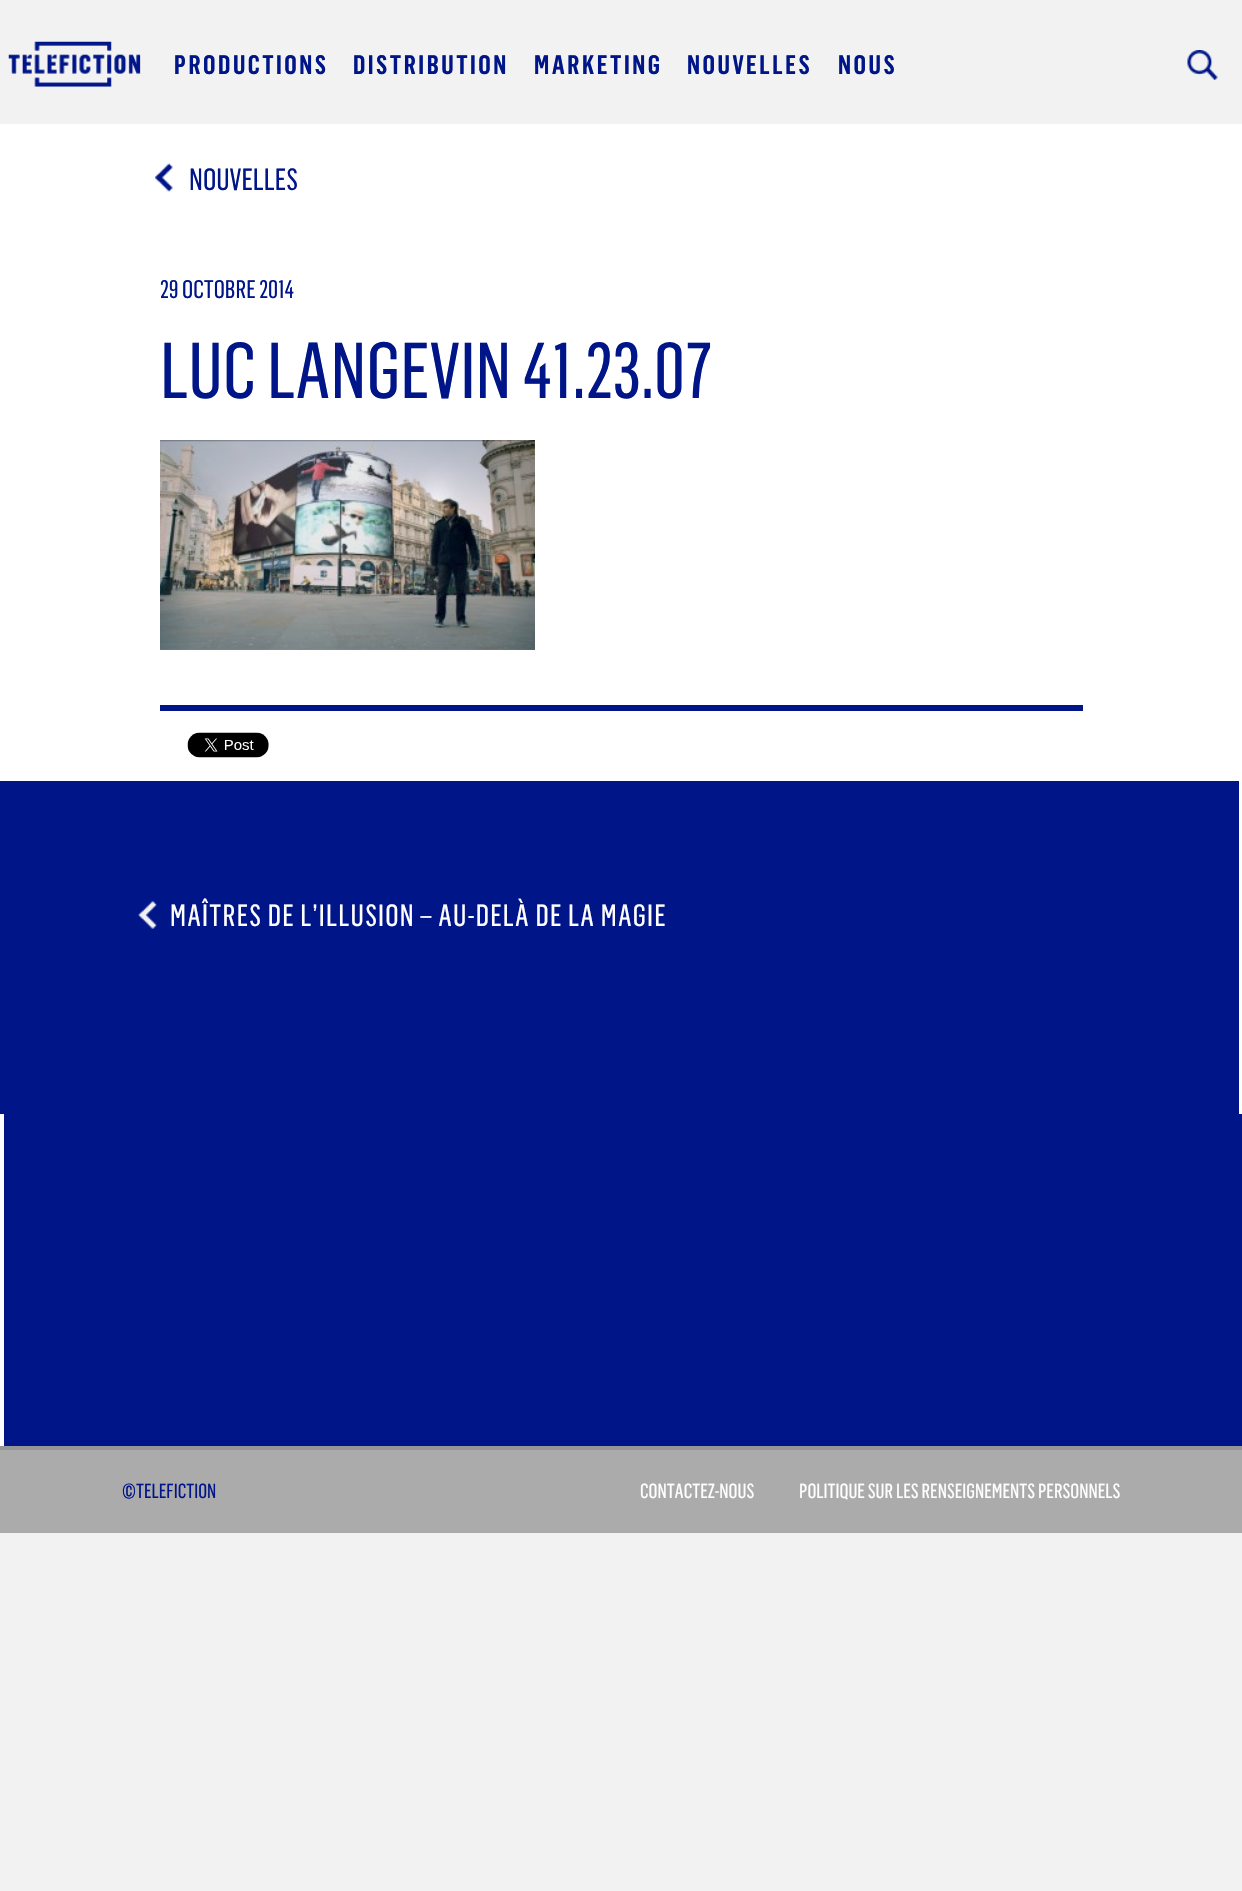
void draw(SkCanvas* canvas) {
    SkPaint paint;
    paint.setAntiAlias(true);
    auto spacedText = [&](const char* s, float x, float y, const SkFont& font, const SkPaint& ink, float letter, float word) {
        std::vector<SkGlyphID> glyphs(font.countText(s, strlen(s), SkTextEncoding::kUTF8));
        std::vector<float> xs(glyphs.size());
        font.textToGlyphs(s, strlen(s), SkTextEncoding::kUTF8, glyphs);
        font.getXPos(glyphs, xs, x);
        float extra = 0;
        for (size_t i = 0; i < glyphs.size(); i++) {
            xs[i] += extra;
            extra += letter + word * (glyphs[i] == font.unicharToGlyph(' '));
        }
        canvas->drawTextBlob(SkTextBlob::MakeFromPosHGlyphs(glyphs, xs, y, font), 0, 0, ink);
    };
    canvas->clear(0xFFF2F2F2);
    canvas->drawImageRect(SkImages::DeferredFromEncodedData(SkData::MakeFromFileName("img1.png")), SkRect::MakeXYWH(8, 41, 133, 46), SkSamplingOptions());
    SkFont font1(fontMgr->matchFamilyStyle("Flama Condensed", SkFontStyle(600, SkFontStyle::kNormal_Width, SkFontStyle::kUpright_Slant)), 26.25f);
    font1.setSubpixel(true);
    paint.setColor(0xFF001588);
    spacedText("PRODUCTIONS", 174, 74, font1, paint, 2.5f, 0);
    spacedText("DISTRIBUTION", 353, 74, font1, paint, 2.5f, 0);
    spacedText("MARKETING", 534, 74, font1, paint, 2.5f, 0);
    spacedText("NOUVELLES", 687, 74, font1, paint, 2.5f, 0);
    spacedText("NOUS", 838, 74, font1, paint, 2.5f, 0);
    canvas->drawImageRect(SkImages::DeferredFromEncodedData(SkData::MakeFromFileName("img2.png")), SkRect::MakeXYWH(1187, 50, 31, 30), SkSamplingOptions());
    paint.setColor(0xFFFFFFFF);
    canvas->drawRect(SkRect::MakeXYWH(0, 124, 1242, 657), paint);
    canvas->drawImageRect(SkImages::DeferredFromEncodedData(SkData::MakeFromFileName("img3.png")), SkRect::MakeXYWH(155, 163, 18, 29), SkSamplingOptions());
    SkFont font2(fontMgr->matchFamilyStyle("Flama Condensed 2", SkFontStyle(600, SkFontStyle::kNormal_Width, SkFontStyle::kUpright_Slant)), 30);
    font2.setSubpixel(true);
    paint.setColor(0xFF001588);
    canvas->drawString("NOUVELLES", 189, 190, font2, paint);
    SkFont font3(fontMgr->matchFamilyStyle("Flama Condensed 2", SkFontStyle(600, SkFontStyle::kNormal_Width, SkFontStyle::kUpright_Slant)), 25);
    font3.setSubpixel(true);
    canvas->drawString("29 OCTOBRE 2014", 160, 298, font3, paint);
    SkFont font4(fontMgr->matchFamilyStyle("Flama Condensed 2", SkFontStyle(600, SkFontStyle::kNormal_Width, SkFontStyle::kUpright_Slant)), 77.5f);
    font4.setSubpixel(true);
    canvas->drawString("LUC LANGEVIN 41.23.07", 160, 398, font4, paint);
    canvas->drawImageRect(SkImages::DeferredFromEncodedData(SkData::MakeFromFileName("img4.png")), SkRect::MakeXYWH(160, 440, 375, 210), SkSamplingOptions());
    canvas->drawRect(SkRect::MakeXYWH(160, 705, 923, 6), paint);
    canvas->drawImageRect(SkImages::DeferredFromEncodedData(SkData::MakeFromFileName("img5.png")), SkRect::MakeXYWH(187, 732, 82, 26), SkSamplingOptions());
    canvas->drawRect(SkRect::MakeXYWH(0, 781, 1242, 665), paint);
    paint.setColor(0xFFFFFFFF);
    canvas->drawRect(SkRect::MakeXYWH(1239, 781, 3, 333), paint);
    canvas->drawImageRect(SkImages::DeferredFromEncodedData(SkData::MakeFromFileName("img6.png")), SkRect::MakeXYWH(138, 901, 19, 28), SkSamplingOptions());
    spacedText("MAÎTRES DE L’ILLUSION – AU-DELÀ DE LA MAGIE", 170, 926, font2, paint, 1.25f, 0);
    canvas->drawRect(SkRect::MakeXYWH(0, 1114, 4, 332), paint);
    paint.setColor(0xFFABABAB);
    canvas->drawRect(SkRect::MakeXYWH(0, 1450, 1242, 83), paint);
    paint.setColor(0xFF959595);
    canvas->drawRect(SkRect::MakeXYWH(0, 1446, 1242, 4), paint);
    SkFont font5(fontMgr->matchFamilyStyle("Flama Condensed 2", SkFontStyle(600, SkFontStyle::kNormal_Width, SkFontStyle::kUpright_Slant)), 20);
    font5.setSubpixel(true);
    paint.setColor(0xFF001588);
    canvas->drawString("©TELEFICTION", 122, 1498, font5, paint);
    paint.setColor(0xFFFFFFFF);
    canvas->drawString("CONTACTEZ-NOUS", 640, 1498, font5, paint);
    canvas->drawString("POLITIQUE SUR LES RENSEIGNEMENTS PERSONNELS", 799, 1498, font5, paint);
}
